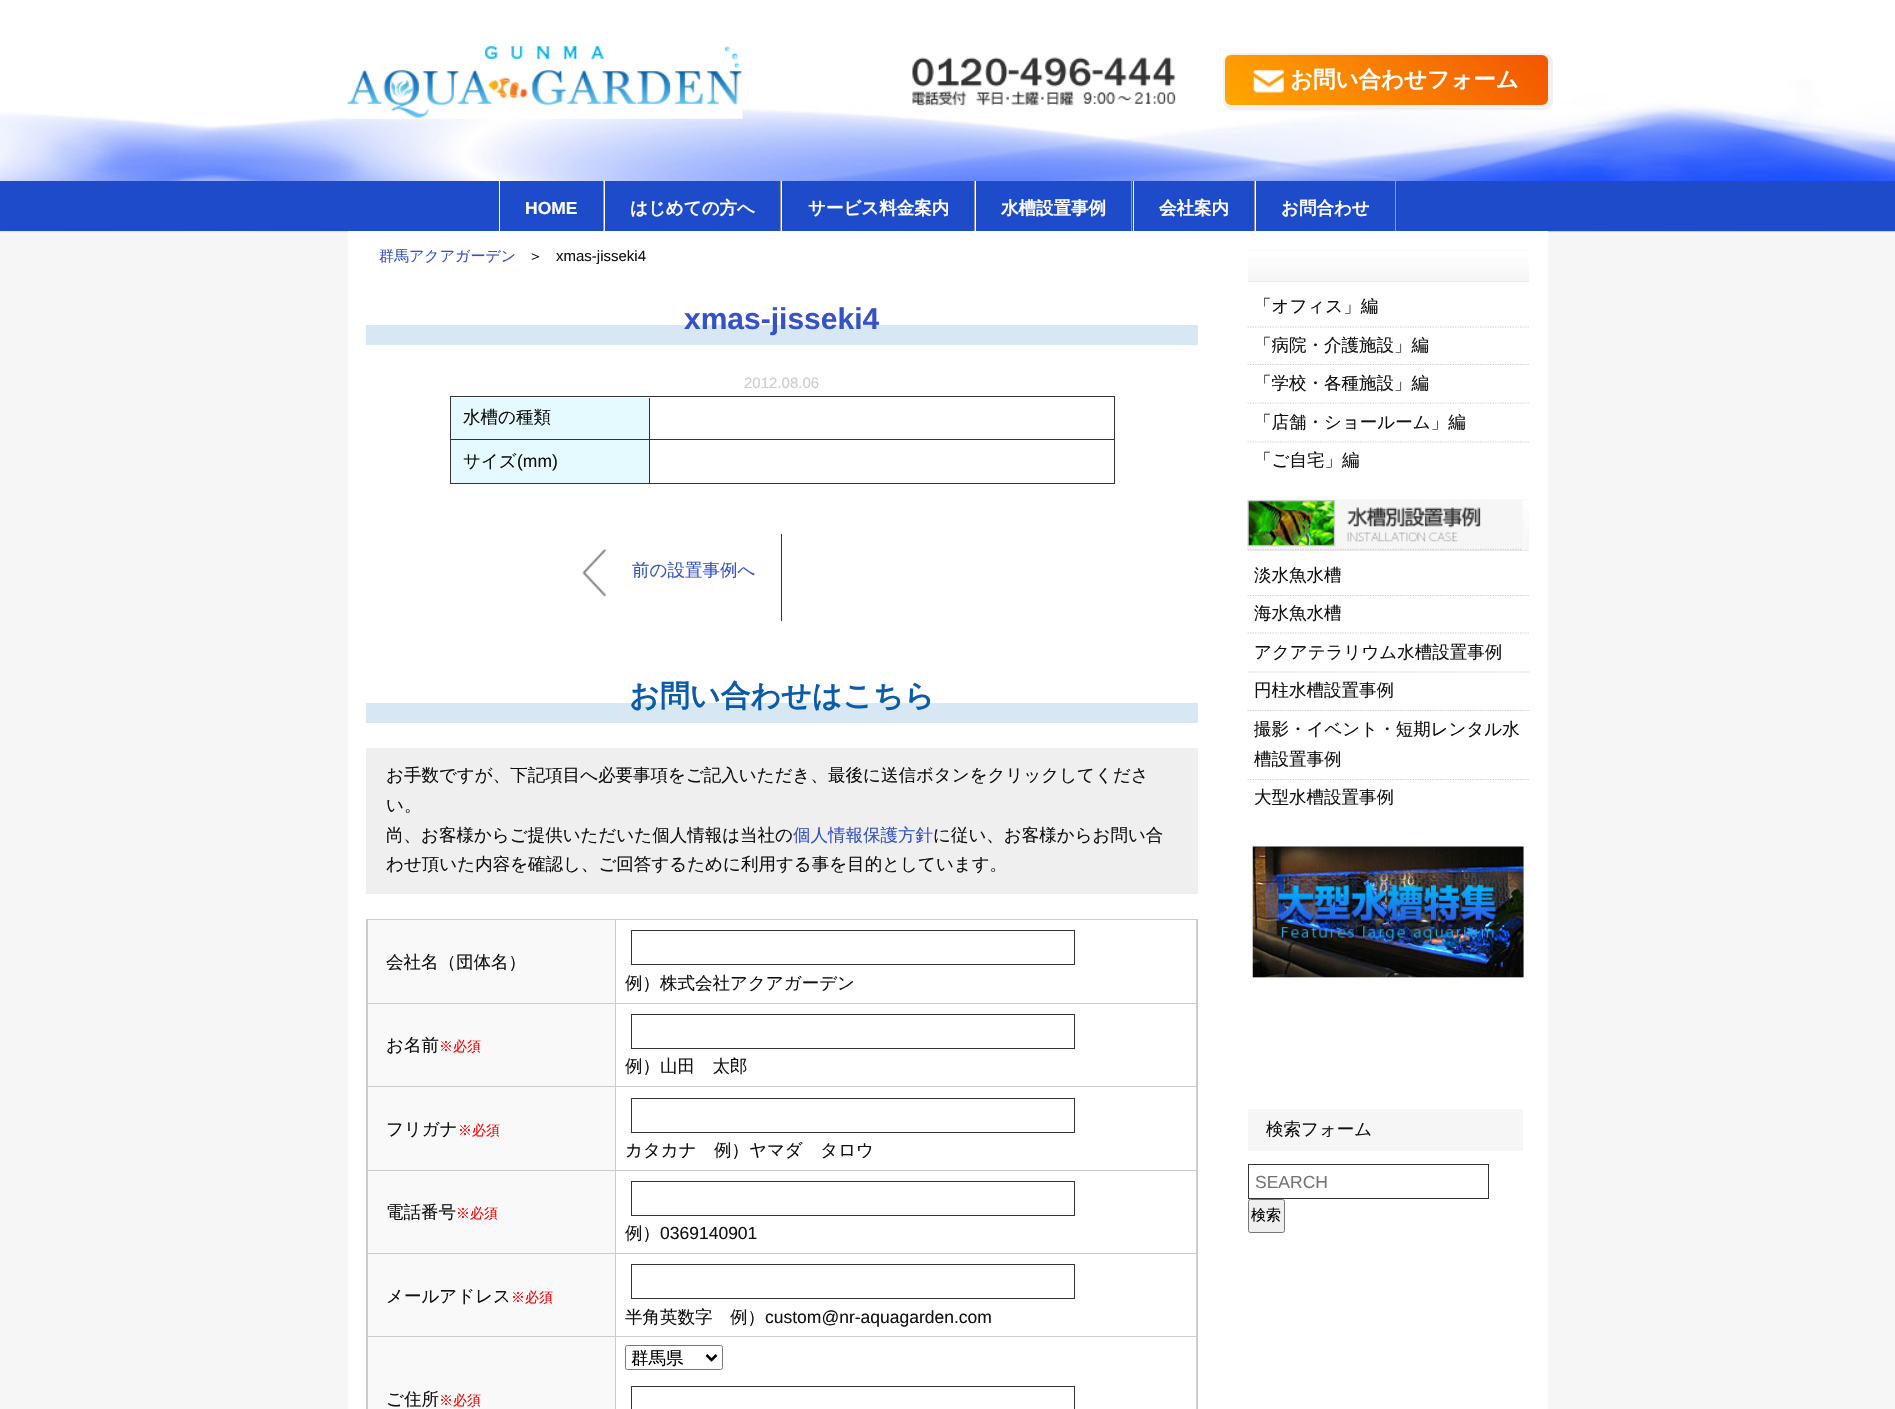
void draw(SkCanvas* canvas) {
    SkPaint paint;
    paint.setAntiAlias(true);
    canvas->clear(0xFFF6F6F6);
    canvas->drawImageRect(SkImages::DeferredFromEncodedData(SkData::MakeFromFileName("img1.png")), SkRect::MakeXYWH(0, 0, 1895, 232), SkSamplingOptions());
    canvas->drawImageRect(SkImages::DeferredFromEncodedData(SkData::MakeFromFileName("img2.png")), SkRect::MakeXYWH(347, 46, 396, 73), SkSamplingOptions());
    canvas->drawImageRect(SkImages::DeferredFromEncodedData(SkData::MakeFromFileName("img3.png")), SkRect::MakeXYWH(912, 57, 264, 49), SkSamplingOptions());
    paint.setColor(0xFFF1F1F1);
    canvas->drawPath(SkPathBuilder(SkPathFillType::kEvenOdd).moveTo(1233, 53).cubicTo(1227, 53, 1223, 57, 1223, 63).lineTo(1223, 100).cubicTo(1223, 106, 1227, 110, 1233, 110).lineTo(1543, 110).cubicTo(1549, 110, 1553, 106, 1553, 100).lineTo(1553, 63).cubicTo(1553, 57, 1549, 53, 1543, 53).close().moveTo(1231, 55).cubicTo(1228, 55, 1225, 58, 1225, 61).lineTo(1225, 99).cubicTo(1225, 102, 1228, 105, 1231, 105).lineTo(1541, 105).cubicTo(1545, 105, 1548, 102, 1548, 99).lineTo(1548, 61).cubicTo(1548, 58, 1545, 55, 1541, 55).close().detach(), paint);
    {
        const SkColor colors[] = {0xFFFFA800, 0xFFF35600};
        const float stops[] = {0, 1};
        const SkPoint ends[] = {{1293, 173}, {1479, -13}};
        paint.setShader(SkGradientShader::MakeLinear(ends, colors, stops, 2, SkTileMode::kClamp));
        paint.setAlpha(255);
    }
    canvas->drawRoundRect(SkRect::MakeXYWH(1225, 55, 323, 50), 6, 6, paint);
    canvas->drawImageRect(SkImages::DeferredFromEncodedData(SkData::MakeFromFileName("img4.png")), SkRect::MakeXYWH(1253, 69, 31, 24), SkSamplingOptions());
    SkFont font1(fontMgr->matchFamilyStyle("WenQuanYi Zen Hei", SkFontStyle::Bold()), 22.5f);
    font1.setSubpixel(true);
    paint.setShader(nullptr);
    paint.setColor(0xFFFFFFFF);
    canvas->drawString("お問い合わせフォーム", 1290, 87, font1, paint);
    paint.setColor(0xFF1E4BCA);
    canvas->drawRect(SkRect::MakeXYWH(0, 181, 1895, 50), paint);
    paint.setColor(0xFF999999);
    canvas->drawRect(SkRect::MakeXYWH(603, 181, 1, 50), paint);
    paint.setColor(0xFFFFFFFF);
    canvas->drawRect(SkRect::MakeXYWH(499, 181, 1, 50), paint);
    SkFont font2(fontMgr->matchFamilyStyle("Liberation Sans", SkFontStyle::Bold()), 17.5f);
    font2.setSubpixel(true);
    canvas->drawString("HOME", 525, 214, font2, paint);
    paint.setColor(0xFF999999);
    canvas->drawRect(SkRect::MakeXYWH(780, 181, 1, 50), paint);
    paint.setColor(0xFFFFFFFF);
    canvas->drawRect(SkRect::MakeXYWH(604, 181, 1, 50), paint);
    SkFont font3(fontMgr->matchFamilyStyle("WenQuanYi Zen Hei", SkFontStyle::Bold()), 17.5f);
    font3.setSubpixel(true);
    canvas->drawString("はじめての方へ", 630, 214, font3, paint);
    paint.setColor(0xFF999999);
    canvas->drawRect(SkRect::MakeXYWH(974, 181, 1, 50), paint);
    paint.setColor(0xFFFFFFFF);
    canvas->drawRect(SkRect::MakeXYWH(781, 181, 1, 50), paint);
    canvas->drawString("サービス料金案内", 808, 214, font3, paint);
    paint.setColor(0xFF999999);
    canvas->drawRect(SkRect::MakeXYWH(1131, 181, 1, 50), paint);
    paint.setColor(0xFFFFFFFF);
    canvas->drawRect(SkRect::MakeXYWH(975, 181, 1, 50), paint);
    canvas->drawString("水槽設置事例", 1001, 214, font3, paint);
    paint.setColor(0xFF999999);
    canvas->drawRect(SkRect::MakeXYWH(1254, 181, 1, 50), paint);
    paint.setColor(0xFFFFFFFF);
    canvas->drawRect(SkRect::MakeXYWH(1133, 181, 1, 50), paint);
    canvas->drawString("会社案内", 1159, 214, font3, paint);
    paint.setColor(0xFF999999);
    canvas->drawRect(SkRect::MakeXYWH(1395, 181, 1, 50), paint);
    paint.setColor(0xFFFFFFFF);
    canvas->drawRect(SkRect::MakeXYWH(1255, 181, 1, 50), paint);
    canvas->drawString("お問合わせ", 1281, 214, font3, paint);
    canvas->drawRect(SkRect::MakeXYWH(348, 231, 1200, 1178), paint);
    SkFont font4(fontMgr->matchFamilyStyle("WenQuanYi Zen Hei", SkFontStyle(500, SkFontStyle::kNormal_Width, SkFontStyle::kUpright_Slant)), 15);
    font4.setSubpixel(true);
    paint.setColor(0xFF3552C6);
    canvas->drawString("群馬アクアガーデン", 379, 261, font4, paint);
    paint.setColor(0xFF111111);
    canvas->drawString("＞", 528, 261, font4, paint);
    SkFont font5(fontMgr->matchFamilyStyle("Liberation Sans", SkFontStyle::Normal()), 15);
    font5.setSubpixel(true);
    canvas->drawString("xmas-jisseki4", 556, 261, font5, paint);
    paint.setColor(0xFFD7E8F4);
    canvas->drawRect(SkRect::MakeXYWH(366, 325, 832, 20), paint);
    SkFont font6(fontMgr->matchFamilyStyle("Liberation Sans", SkFontStyle::Bold()), 30);
    font6.setSubpixel(true);
    paint.setColor(0xFF3552C6);
    canvas->drawString("xmas-jisseki4", 684, 329, font6, paint);
    paint.setColor(0xFFCCCCCC);
    canvas->drawString("2012.08.06", 744, 388, font5, paint);
    paint.setColor(0xFF333333);
    canvas->drawRect(SkRect::MakeXYWH(450, 396, 665, 1), paint);
    canvas->drawRect(SkRect::MakeXYWH(1114, 396, 1, 88), paint);
    canvas->drawRect(SkRect::MakeXYWH(450, 483, 665, 1), paint);
    canvas->drawRect(SkRect::MakeXYWH(450, 396, 1, 88), paint);
    paint.setColor(0xFFE5FAFF);
    canvas->drawRect(SkRect::MakeXYWH(451, 398, 198, 41), paint);
    SkFont font7(fontMgr->matchFamilyStyle("WenQuanYi Zen Hei", SkFontStyle(500, SkFontStyle::kNormal_Width, SkFontStyle::kUpright_Slant)), 17.5f);
    font7.setSubpixel(true);
    paint.setColor(0xFF111111);
    canvas->drawString("水槽の種類", 463, 423, font7, paint);
    paint.setColor(0xFF333333);
    canvas->drawRect(SkRect::MakeXYWH(649, 439, 465, 1), paint);
    canvas->drawRect(SkRect::MakeXYWH(649, 439, 1, 44), paint);
    canvas->drawRect(SkRect::MakeXYWH(451, 439, 199, 1), paint);
    canvas->drawRect(SkRect::MakeXYWH(649, 398, 1, 42), paint);
    paint.setColor(0xFFE5FAFF);
    canvas->drawRect(SkRect::MakeXYWH(451, 440, 198, 43), paint);
    paint.setColor(0xFF111111);
    canvas->drawString("サイズ", 463, 467, font7, paint);
    SkFont font8(fontMgr->matchFamilyStyle("Liberation Sans", SkFontStyle::Normal()), 17.5f);
    font8.setSubpixel(true);
    canvas->drawString("(mm)", 517, 467, font8, paint);
    paint.setColor(0xFF333333);
    canvas->drawRect(SkRect::MakeXYWH(781, 534, 1, 87), paint);
    canvas->drawImageRect(SkImages::DeferredFromEncodedData(SkData::MakeFromFileName("img5.png")), SkRect::MakeXYWH(582, 548, 25, 49), SkSamplingOptions());
    paint.setColor(0xFF3552C6);
    canvas->drawString("前の設置事例へ", 632, 576, font7, paint);
    paint.setColor(0xFFD7E8F4);
    canvas->drawRect(SkRect::MakeXYWH(366, 703, 832, 20), paint);
    SkFont font9(fontMgr->matchFamilyStyle("WenQuanYi Zen Hei", SkFontStyle::Bold()), 30);
    font9.setSubpixel(true);
    paint.setColor(0xFF0B5BAB);
    canvas->drawString("お問い合わせはこちら", 629, 706, font9, paint);
    paint.setColor(0xFFEFEFEF);
    canvas->drawRect(SkRect::MakeXYWH(366, 748, 832, 146), paint);
    paint.setColor(0xFF111111);
    canvas->drawString("お手数ですが、下記項目へ必要事項をご記入いただき、最後に送信ボタンをクリックしてくださ", 386, 781, font7, paint);
    canvas->drawString("い。", 386, 811, font7, paint);
    canvas->drawString("尚、お客様からご提供いただいた個人情報は当社の", 386, 841, font7, paint);
    paint.setColor(0xFF3552C6);
    canvas->drawString("個人情報保護方針", 793, 841, font7, paint);
    paint.setColor(0xFF111111);
    canvas->drawString("に従い、お客様からお問い合", 933, 841, font7, paint);
    canvas->drawString("わせ頂いた内容を確認し、ご回答するために利用する事を目的としています。", 386, 870, font7, paint);
    paint.setColor(0xFFCCCCCC);
    canvas->drawRect(SkRect::MakeXYWH(366, 919, 832, 490), paint);
    paint.setColor(0xFFF9F9F9);
    canvas->drawRect(SkRect::MakeXYWH(368, 920, 247, 83), paint);
    paint.setColor(0xFF111111);
    canvas->drawString("会社名（団体名）", 386, 968, font7, paint);
    paint.setColor(0xFFFFFFFF);
    canvas->drawRect(SkRect::MakeXYWH(616, 920, 580, 83), paint);
    paint.setStyle(SkPaint::kStroke_Style);
    paint.setStrokeWidth(1);
    paint.setColor(0xFF333333);
    canvas->drawRect(SkRect::MakeXYWH(631.5f, 930.5f, 443, 34), paint);
    paint.setStyle(SkPaint::kFill_Style);
    paint.setColor(0xFF111111);
    canvas->drawString("例）株式会社アクアガーデン", 625, 989, font7, paint);
    paint.setColor(0xFFF9F9F9);
    canvas->drawRect(SkRect::MakeXYWH(368, 1004, 247, 82), paint);
    paint.setColor(0xFF111111);
    canvas->drawString("お名前", 386, 1051, font7, paint);
    SkFont font10(fontMgr->matchFamilyStyle("WenQuanYi Zen Hei", SkFontStyle(500, SkFontStyle::kNormal_Width, SkFontStyle::kUpright_Slant)), 14);
    font10.setSubpixel(true);
    paint.setColor(0xFFFF0000);
    canvas->drawString("※必須", 439, 1051, font10, paint);
    paint.setColor(0xFFFFFFFF);
    canvas->drawRect(SkRect::MakeXYWH(616, 1004, 580, 82), paint);
    paint.setStyle(SkPaint::kStroke_Style);
    paint.setColor(0xFF333333);
    canvas->drawRect(SkRect::MakeXYWH(631.5f, 1014.5f, 443, 34), paint);
    paint.setStyle(SkPaint::kFill_Style);
    paint.setColor(0xFF111111);
    canvas->drawString("例）山田　太郎", 625, 1072, font7, paint);
    paint.setColor(0xFFF9F9F9);
    canvas->drawRect(SkRect::MakeXYWH(368, 1087, 247, 83), paint);
    paint.setColor(0xFF111111);
    canvas->drawString("フリガナ", 386, 1135, font7, paint);
    paint.setColor(0xFFFF0000);
    canvas->drawString("※必須", 458, 1135, font10, paint);
    paint.setColor(0xFFFFFFFF);
    canvas->drawRect(SkRect::MakeXYWH(616, 1087, 580, 83), paint);
    paint.setStyle(SkPaint::kStroke_Style);
    paint.setColor(0xFF333333);
    canvas->drawRect(SkRect::MakeXYWH(631.5f, 1098.5f, 443, 34), paint);
    paint.setStyle(SkPaint::kFill_Style);
    paint.setColor(0xFF111111);
    canvas->drawString("カタカナ", 625, 1156, font7, paint);
    canvas->drawString("例）ヤマダ　タロウ", 714, 1156, font7, paint);
    paint.setColor(0xFFF9F9F9);
    canvas->drawRect(SkRect::MakeXYWH(368, 1171, 247, 82), paint);
    paint.setColor(0xFF111111);
    canvas->drawString("電話番号", 386, 1218, font7, paint);
    paint.setColor(0xFFFF0000);
    canvas->drawString("※必須", 456, 1218, font10, paint);
    paint.setColor(0xFFFFFFFF);
    canvas->drawRect(SkRect::MakeXYWH(616, 1171, 580, 82), paint);
    paint.setStyle(SkPaint::kStroke_Style);
    paint.setColor(0xFF333333);
    canvas->drawRect(SkRect::MakeXYWH(631.5f, 1181.5f, 443, 34), paint);
    paint.setStyle(SkPaint::kFill_Style);
    paint.setColor(0xFF111111);
    canvas->drawString("例）", 625, 1239, font7, paint);
    canvas->drawString("0369140901", 660, 1239, font8, paint);
    paint.setColor(0xFFF9F9F9);
    canvas->drawRect(SkRect::MakeXYWH(368, 1254, 247, 155), paint);
    paint.setColor(0xFF111111);
    canvas->drawString("メールアドレス", 386, 1302, font7, paint);
    paint.setColor(0xFFFF0000);
    canvas->drawString("※必須", 511, 1302, font10, paint);
    paint.setColor(0xFFFFFFFF);
    canvas->drawRect(SkRect::MakeXYWH(616, 1254, 580, 155), paint);
    paint.setStyle(SkPaint::kStroke_Style);
    paint.setColor(0xFF333333);
    canvas->drawRect(SkRect::MakeXYWH(631.5f, 1264.5f, 443, 34), paint);
    paint.setStyle(SkPaint::kFill_Style);
    paint.setColor(0xFF111111);
    canvas->drawString("半角英数字", 625, 1323, font7, paint);
    canvas->drawString("例）", 730, 1323, font7, paint);
    canvas->drawString("custom@nr-aquagarden.com", 765, 1323, font8, paint);
    paint.setColor(0xFFCCCCCC);
    canvas->drawRect(SkRect::MakeXYWH(368, 1336, 828, 1), paint);
    paint.setStyle(SkPaint::kStroke_Style);
    paint.setColor(0xFF767676);
    canvas->drawRoundRect(SkRect::MakeXYWH(625.5f, 1345.5f, 97, 24), 2, 2, paint);
    paint.setStrokeWidth(2.5f);
    paint.setColor(0xFF000000);
    canvas->drawPath(SkPathBuilder().moveTo(706.5f, 1355).lineTo(711.5f, 1360).lineTo(716.5f, 1355).detach(), paint);
    paint.setStyle(SkPaint::kFill_Style);
    canvas->drawString("群馬県", 631, 1364, font7, paint);
    paint.setStyle(SkPaint::kStroke_Style);
    paint.setStrokeWidth(1);
    paint.setColor(0xFF333333);
    canvas->drawRect(SkRect::MakeXYWH(631.5f, 1386.5f, 443, 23), paint);
    paint.setStyle(SkPaint::kFill_Style);
    paint.setColor(0xFF111111);
    canvas->drawString("ご住所", 386, 1405, font7, paint);
    paint.setColor(0xFFFF0000);
    canvas->drawString("※必須", 439, 1405, font10, paint);
    {
        const SkColor colors[] = {0xFFFEFEFE, 0xFFF6F6F6};
        const float stops[] = {0, 1};
        const SkPoint ends[] = {{1388, 251}, {1388, 281}};
        paint.setShader(SkGradientShader::MakeLinear(ends, colors, stops, 2, SkTileMode::kClamp));
        paint.setAlpha(255);
    }
    canvas->drawRect(SkRect::MakeXYWH(1248, 257, 281, 24), paint);
    paint.setShader(nullptr);
    paint.setColor(0xFFF8F8F8);
    canvas->drawRect(SkRect::MakeXYWH(1248, 250, 281, 1), paint);
    paint.setColor(0xFFE8E8E8);
    canvas->drawRect(SkRect::MakeXYWH(1248, 281, 281, 1), paint);
    paint.setStyle(SkPaint::kStroke_Style);
    paint.setStrokeWidth(1.2f);
    paint.setColor(0xFFCCCCCC);
    paint.setPathEffect(SkDashPathEffect::Make({{1.25f, 1.25f}}, 0));
    canvas->drawPath(SkPathBuilder().moveTo(1247.5f, 327).lineTo(1529, 327).detach(), paint);
    paint.setPathEffect(nullptr);
    paint.setStyle(SkPaint::kFill_Style);
    paint.setColor(0xFF111111);
    canvas->drawString("「オフィス」編", 1254, 312, font7, paint);
    paint.setStyle(SkPaint::kStroke_Style);
    paint.setColor(0xFFCCCCCC);
    paint.setPathEffect(SkDashPathEffect::Make({{1.25f, 1.25f}}, 0));
    canvas->drawPath(SkPathBuilder().moveTo(1247.5f, 364.5f).lineTo(1529, 364.5f).detach(), paint);
    paint.setPathEffect(nullptr);
    paint.setStyle(SkPaint::kFill_Style);
    paint.setColor(0xFF111111);
    canvas->drawString("「病院・介護施設」編", 1254, 351, font7, paint);
    paint.setStyle(SkPaint::kStroke_Style);
    paint.setColor(0xFFCCCCCC);
    paint.setPathEffect(SkDashPathEffect::Make({{1.25f, 1.25f}}, 0));
    canvas->drawPath(SkPathBuilder().moveTo(1247.5f, 403).lineTo(1529, 403).detach(), paint);
    paint.setPathEffect(nullptr);
    paint.setStyle(SkPaint::kFill_Style);
    paint.setColor(0xFF111111);
    canvas->drawString("「学校・各種施設」編", 1254, 389, font7, paint);
    paint.setStyle(SkPaint::kStroke_Style);
    paint.setColor(0xFFCCCCCC);
    paint.setPathEffect(SkDashPathEffect::Make({{1.25f, 1.25f}}, 0));
    canvas->drawPath(SkPathBuilder().moveTo(1247.5f, 442).lineTo(1529, 442).detach(), paint);
    paint.setPathEffect(nullptr);
    paint.setStyle(SkPaint::kFill_Style);
    paint.setColor(0xFF111111);
    canvas->drawString("「店舗・ショールーム」編", 1254, 428, font7, paint);
    canvas->drawString("「ご自宅」編", 1254, 466, font7, paint);
    {
        const SkColor colors[] = {0xFFFEFEFE, 0xFFF6F6F6};
        const float stops[] = {0, 1};
        const SkPoint ends[] = {{1388, 500}, {1388, 550}};
        paint.setShader(SkGradientShader::MakeLinear(ends, colors, stops, 2, SkTileMode::kClamp));
        paint.setAlpha(255);
    }
    canvas->drawRect(SkRect::MakeXYWH(1522, 509, 7, 41), paint);
    paint.setShader(nullptr);
    paint.setColor(0xFFF8F8F8);
    canvas->drawRect(SkRect::MakeXYWH(1248, 499, 281, 1), paint);
    paint.setColor(0xFFE8E8E8);
    canvas->drawRect(SkRect::MakeXYWH(1248, 550, 281, 1), paint);
    canvas->drawImageRect(SkImages::DeferredFromEncodedData(SkData::MakeFromFileName("img6.png")), SkRect::MakeXYWH(1247, 500, 276, 50), SkSamplingOptions());
    paint.setStyle(SkPaint::kStroke_Style);
    paint.setColor(0xFFCCCCCC);
    paint.setPathEffect(SkDashPathEffect::Make({{1.25f, 1.25f}}, 0));
    canvas->drawPath(SkPathBuilder().moveTo(1247.5f, 595.5f).lineTo(1529, 595.5f).detach(), paint);
    paint.setPathEffect(nullptr);
    paint.setStyle(SkPaint::kFill_Style);
    paint.setColor(0xFF111111);
    canvas->drawString("淡水魚水槽", 1254, 581, font7, paint);
    paint.setStyle(SkPaint::kStroke_Style);
    paint.setColor(0xFFCCCCCC);
    paint.setPathEffect(SkDashPathEffect::Make({{1.25f, 1.25f}}, 0));
    canvas->drawPath(SkPathBuilder().moveTo(1247.5f, 633).lineTo(1529, 633).detach(), paint);
    paint.setPathEffect(nullptr);
    paint.setStyle(SkPaint::kFill_Style);
    paint.setColor(0xFF111111);
    canvas->drawString("海水魚水槽", 1254, 619, font7, paint);
    paint.setStyle(SkPaint::kStroke_Style);
    paint.setColor(0xFFCCCCCC);
    paint.setPathEffect(SkDashPathEffect::Make({{1.25f, 1.25f}}, 0));
    canvas->drawPath(SkPathBuilder().moveTo(1247.5f, 672).lineTo(1529, 672).detach(), paint);
    paint.setPathEffect(nullptr);
    paint.setStyle(SkPaint::kFill_Style);
    paint.setColor(0xFF111111);
    canvas->drawString("アクアテラリウム水槽設置事例", 1254, 658, font7, paint);
    paint.setStyle(SkPaint::kStroke_Style);
    paint.setColor(0xFFCCCCCC);
    paint.setPathEffect(SkDashPathEffect::Make({{1.25f, 1.25f}}, 0));
    canvas->drawPath(SkPathBuilder().moveTo(1247.5f, 710.5f).lineTo(1529, 710.5f).detach(), paint);
    paint.setPathEffect(nullptr);
    paint.setStyle(SkPaint::kFill_Style);
    paint.setColor(0xFF111111);
    canvas->drawString("円柱水槽設置事例", 1254, 696, font7, paint);
    paint.setStyle(SkPaint::kStroke_Style);
    paint.setColor(0xFFCCCCCC);
    paint.setPathEffect(SkDashPathEffect::Make({{1.25f, 1.25f}}, 0));
    canvas->drawPath(SkPathBuilder().moveTo(1247.5f, 779.5f).lineTo(1529, 779.5f).detach(), paint);
    paint.setPathEffect(nullptr);
    paint.setStyle(SkPaint::kFill_Style);
    paint.setColor(0xFF111111);
    canvas->drawString("撮影・イベント・短期レンタル水", 1254, 735, font7, paint);
    canvas->drawString("槽設置事例", 1254, 765, font7, paint);
    canvas->drawString("大型水槽設置事例", 1254, 803, font7, paint);
    canvas->drawImageRect(SkImages::DeferredFromEncodedData(SkData::MakeFromFileName("img7.png")), SkRect::MakeXYWH(1247, 843, 282, 140), SkSamplingOptions());
    paint.setColor(0xFFF6F6F6);
    canvas->drawRect(SkRect::MakeXYWH(1248, 1109, 275, 42), paint);
    paint.setColor(0xFF111111);
    canvas->drawString("検索フォーム", 1266, 1135, font7, paint);
    paint.setStyle(SkPaint::kStroke_Style);
    paint.setStrokeWidth(1);
    paint.setColor(0xFF333333);
    canvas->drawRect(SkRect::MakeXYWH(1248.5f, 1164.5f, 240, 34), paint);
    paint.setStyle(SkPaint::kFill_Style);
    paint.setColor(0xFF757575);
    canvas->drawString("SEARCH", 1255, 1188, font8, paint);
    paint.setColor(0xFFEFEFEF);
    canvas->drawRoundRect(SkRect::MakeXYWH(1248.5f, 1199.5f, 36, 33), 2, 2, paint);
    paint.setStyle(SkPaint::kStroke_Style);
    paint.setColor(0xFF767676);
    canvas->drawRoundRect(SkRect::MakeXYWH(1248.5f, 1199.5f, 36, 33), 2, 2, paint);
    paint.setStyle(SkPaint::kFill_Style);
    paint.setColor(0xFF000000);
    canvas->drawString("検索", 1251, 1220, font4, paint);
}
